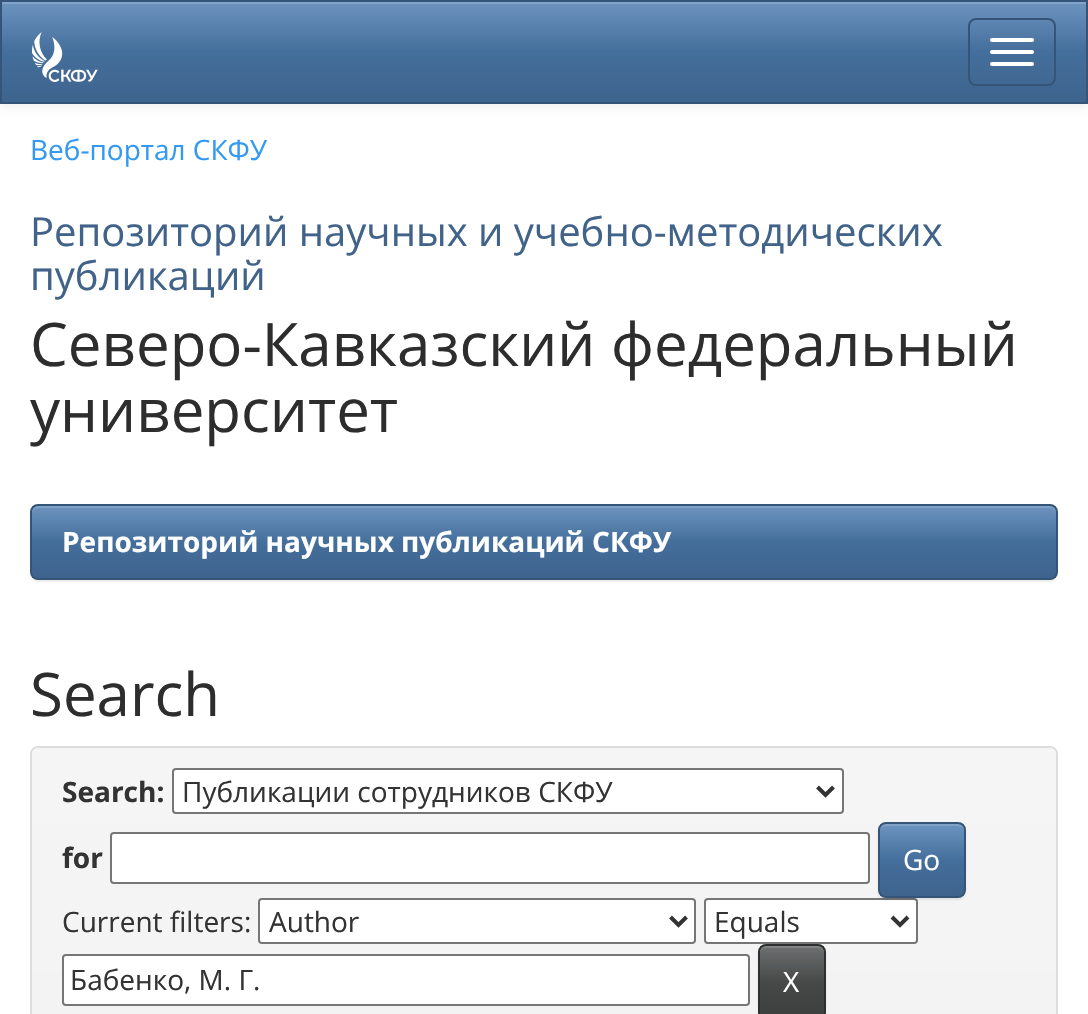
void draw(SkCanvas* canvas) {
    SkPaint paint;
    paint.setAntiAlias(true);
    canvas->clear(0xFFFFFFFF);
    paint.setColor(0x12000000);
    paint.setMaskFilter(SkMaskFilter::MakeBlur(kNormal_SkBlurStyle, 5));
    canvas->drawRect(SkRect::MakeXYWH(0, 2, 1088, 104), paint);
    paint.setMaskFilter(nullptr);
    {
        const SkColor colors[] = {0xFF6D94BF, 0xFF446E9B, 0xFF3E648D};
        const float stops[] = {0, 0.5f, 1};
        const SkPoint ends[] = {{544, 2}, {544, 102}};
        paint.setShader(SkGradientShader::MakeLinear(ends, colors, stops, 3, SkTileMode::kClamp));
        paint.setAlpha(255);
    }
    canvas->drawRect(SkRect::MakeXYWH(2, 4, 1084, 98), paint);
    paint.setShader(nullptr);
    paint.setColor(0xFF82A4C8);
    canvas->drawRect(SkRect::MakeXYWH(2, 2, 1084, 2), paint);
    paint.setStyle(SkPaint::kStroke_Style);
    paint.setStrokeWidth(2);
    paint.setColor(0xFF345578);
    canvas->drawRect(SkRect::MakeXYWH(1, 1, 1086, 102), paint);
    canvas->drawImageRect(SkImages::DeferredFromEncodedData(SkData::MakeFromFileName("img1.png")), SkRect::MakeXYWH(32, 32, 66, 50), SkSamplingOptions());
    canvas->drawRoundRect(SkRect::MakeXYWH(969, 19, 86, 66), 7, 7, paint);
    paint.setStyle(SkPaint::kFill_Style);
    paint.setColor(0xFFFFFFFF);
    canvas->drawRoundRect(SkRect::MakeXYWH(990, 38, 44, 4), 2, 2, paint);
    canvas->drawRoundRect(SkRect::MakeXYWH(990, 50, 44, 4), 2, 2, paint);
    canvas->drawRoundRect(SkRect::MakeXYWH(990, 62, 44, 4), 2, 2, paint);
    SkFont font1(fontMgr->matchFamilyStyle("Open Sans", SkFontStyle::Normal()), 28);
    font1.setSubpixel(true);
    paint.setColor(0xFF3399F3);
    canvas->drawString("Веб-портал СКФУ", 30, 160, font1, paint);
    SkFont font2(fontMgr->matchFamilyStyle("Open Sans", SkFontStyle::Normal()), 40);
    font2.setSubpixel(true);
    paint.setColor(0xFF41638A);
    canvas->drawString("Репозиторий научных и учебно-методических", 30, 246, font2, paint);
    canvas->drawString("публикаций", 30, 290, font2, paint);
    SkFont font3(fontMgr->matchFamilyStyle("Open Sans", SkFontStyle::Normal()), 60);
    font3.setSubpixel(true);
    paint.setColor(0xFF2D2D2D);
    canvas->drawString("Северо-Кавказский федеральный", 30, 366, font3, paint);
    canvas->drawString("университет", 30, 432, font3, paint);
    paint.setColor(0x12000000);
    paint.setMaskFilter(SkMaskFilter::MakeBlur(kNormal_SkBlurStyle, 1));
    canvas->drawRoundRect(SkRect::MakeXYWH(30, 506, 1028, 76), 8, 8, paint);
    paint.setMaskFilter(nullptr);
    canvas->save();
    canvas->clipPath(SkPathBuilder().moveTo(38, 504).lineTo(1050, 504).cubicTo(1054.5f, 504, 1058, 507.5f, 1058, 512).lineTo(1058, 572).cubicTo(1058, 576.5f, 1054.5f, 580, 1050, 580).lineTo(38, 580).cubicTo(33.5f, 580, 30, 576.5f, 30, 572).lineTo(30, 512).cubicTo(30, 507.5f, 33.5f, 504, 38, 504).close().detach(), true);
    {
        const SkColor colors[] = {0xFF6D94BF, 0xFF446E9B, 0xFF3E648D};
        const float stops[] = {0, 0.5f, 1};
        const SkPoint ends[] = {{544, 506}, {544, 578}};
        paint.setShader(SkGradientShader::MakeLinear(ends, colors, stops, 3, SkTileMode::kClamp));
        paint.setAlpha(255);
    }
    canvas->drawRect(SkRect::MakeXYWH(32, 506, 1024, 72), paint);
    canvas->restore();
    paint.setShader(nullptr);
    paint.setColor(0x26FFFFFF);
    canvas->drawPath(SkPathBuilder().moveTo(38, 508).lineTo(1050, 508).cubicTo(1053, 508, 1056, 511, 1056, 514).lineTo(1056, 512).cubicTo(1056, 509, 1053, 506, 1050, 506).lineTo(38, 506).cubicTo(35, 506, 32, 509, 32, 512).lineTo(32, 514).cubicTo(32, 511, 35, 508, 38, 508).close().detach(), paint);
    paint.setStyle(SkPaint::kStroke_Style);
    paint.setColor(0xFF345578);
    canvas->drawRoundRect(SkRect::MakeXYWH(31, 505, 1026, 74), 7, 7, paint);
    SkFont font4(fontMgr->matchFamilyStyle("Open Sans", SkFontStyle::Bold()), 28);
    font4.setSubpixel(true);
    paint.setStyle(SkPaint::kFill_Style);
    paint.setColor(0xFFFFFFFF);
    canvas->drawString("Репозиторий научных публикаций СКФУ", 62, 552, font4, paint);
    paint.setColor(0xFF2D2D2D);
    canvas->drawString("Search", 30, 716, font3, paint);
    paint.setStyle(SkPaint::kStroke_Style);
    paint.setColor(0xFFDDDDDD);
    canvas->drawRoundRect(SkRect::MakeXYWH(31, 747, 1026, 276), 7, 7, paint);
    paint.setStyle(SkPaint::kFill_Style);
    {
        const SkColor colors[] = {0xFFF5F5F5, 0xFFE8E8E8};
        const float stops[] = {0, 1};
        const SkPoint ends[] = {{544, 748}, {544, 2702}};
        paint.setShader(SkGradientShader::MakeLinear(ends, colors, stops, 2, SkTileMode::kClamp));
        paint.setAlpha(255);
    }
    canvas->drawPath(SkPathBuilder().moveTo(38, 748).lineTo(1050, 748).cubicTo(1053.5f, 748, 1056, 750.5f, 1056, 754).lineTo(1056, 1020).lineTo(32, 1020).lineTo(32, 754).cubicTo(32, 750.5f, 34.5f, 748, 38, 748).close().detach(), paint);
    paint.setShader(nullptr);
    paint.setColor(0xFF333333);
    canvas->drawString("Search:", 62, 802, font4, paint);
    paint.setColor(0xFFFFFFFF);
    canvas->drawRoundRect(SkRect::MakeXYWH(173, 769, 670, 44), 3, 3, paint);
    paint.setStyle(SkPaint::kStroke_Style);
    paint.setColor(0xFF767676);
    canvas->drawRoundRect(SkRect::MakeXYWH(173, 769, 670, 44), 3, 3, paint);
    paint.setStrokeWidth(4);
    paint.setColor(0xFF333333);
    canvas->drawPath(SkPathBuilder().moveTo(817.5f, 787).lineTo(825.5f, 795).lineTo(833.5f, 787).detach(), paint);
    paint.setStyle(SkPaint::kFill_Style);
    canvas->drawString("Публикации сотрудников СКФУ", 182, 802, font1, paint);
    canvas->drawString("for", 62, 868, font4, paint);
    paint.setColor(0xFFFFFFFF);
    canvas->drawRoundRect(SkRect::MakeXYWH(111, 833, 758, 50), 3, 3, paint);
    paint.setStyle(SkPaint::kStroke_Style);
    paint.setStrokeWidth(2);
    paint.setColor(0xFF767676);
    canvas->drawRoundRect(SkRect::MakeXYWH(111, 833, 758, 50), 3, 3, paint);
    paint.setStyle(SkPaint::kFill_Style);
    paint.setColor(0xFFFFFFFF);
    canvas->drawRoundRect(SkRect::MakeXYWH(705, 899, 212, 44), 3, 3, paint);
    paint.setStyle(SkPaint::kStroke_Style);
    paint.setColor(0xFF767676);
    canvas->drawRoundRect(SkRect::MakeXYWH(705, 899, 212, 44), 3, 3, paint);
    paint.setStyle(SkPaint::kFill_Style);
    paint.setColor(0x12000000);
    paint.setMaskFilter(SkMaskFilter::MakeBlur(kNormal_SkBlurStyle, 1));
    canvas->drawRoundRect(SkRect::MakeXYWH(878, 824, 88, 76), 8, 8, paint);
    paint.setMaskFilter(nullptr);
    canvas->save();
    canvas->clipPath(SkPathBuilder().moveTo(886, 822).lineTo(958, 822).cubicTo(962.5f, 822, 966, 825.5f, 966, 830).lineTo(966, 890).cubicTo(966, 894.5f, 962.5f, 898, 958, 898).lineTo(886, 898).cubicTo(881.5f, 898, 878, 894.5f, 878, 890).lineTo(878, 830).cubicTo(878, 825.5f, 881.5f, 822, 886, 822).close().detach(), true);
    {
        const SkColor colors[] = {0xFF6D94BF, 0xFF446E9B, 0xFF3E648D};
        const float stops[] = {0, 0.5f, 1};
        const SkPoint ends[] = {{922, 824}, {922, 896}};
        paint.setShader(SkGradientShader::MakeLinear(ends, colors, stops, 3, SkTileMode::kClamp));
        paint.setAlpha(255);
    }
    canvas->drawRect(SkRect::MakeXYWH(880, 824, 84, 72), paint);
    canvas->restore();
    paint.setShader(nullptr);
    paint.setColor(0x26FFFFFF);
    canvas->drawPath(SkPathBuilder().moveTo(886, 826).lineTo(958, 826).cubicTo(961, 826, 964, 829, 964, 832).cubicTo(964, 821, 955, 824, 946, 824).lineTo(898, 824).cubicTo(889, 824, 880, 821, 880, 832).cubicTo(880, 829, 883, 826, 886, 826).close().detach(), paint);
    paint.setStyle(SkPaint::kStroke_Style);
    paint.setColor(0xFF345578);
    canvas->drawRoundRect(SkRect::MakeXYWH(879, 823, 86, 74), 7, 7, paint);
    paint.setStyle(SkPaint::kFill_Style);
    paint.setColor(0xFFFFFFFF);
    canvas->drawString("Go", 903, 870, font1, paint);
    paint.setColor(0xFF333333);
    canvas->drawString("Current filters:", 62, 932, font1, paint);
    paint.setColor(0xFFFFFFFF);
    canvas->drawRoundRect(SkRect::MakeXYWH(259, 899, 436, 44), 3, 3, paint);
    paint.setStyle(SkPaint::kStroke_Style);
    paint.setColor(0xFF767676);
    canvas->drawRoundRect(SkRect::MakeXYWH(259, 899, 436, 44), 3, 3, paint);
    paint.setStrokeWidth(4);
    paint.setColor(0xFF333333);
    canvas->drawPath(SkPathBuilder().moveTo(670.5f, 917).lineTo(678.5f, 925).lineTo(686.5f, 917).detach(), paint);
    paint.setStyle(SkPaint::kFill_Style);
    canvas->drawString("Author", 269, 932, font1, paint);
    paint.setStyle(SkPaint::kStroke_Style);
    canvas->drawPath(SkPathBuilder().moveTo(892, 917).lineTo(900, 925).lineTo(908, 917).detach(), paint);
    paint.setStyle(SkPaint::kFill_Style);
    canvas->drawString("Equals", 714, 932, font1, paint);
    paint.setColor(0xFFFFFFFF);
    canvas->drawRoundRect(SkRect::MakeXYWH(63, 955, 686, 50), 3, 3, paint);
    paint.setStyle(SkPaint::kStroke_Style);
    paint.setStrokeWidth(2);
    paint.setColor(0xFF767676);
    canvas->drawRoundRect(SkRect::MakeXYWH(63, 955, 686, 50), 3, 3, paint);
    paint.setStyle(SkPaint::kFill_Style);
    paint.setColor(0xFF333333);
    canvas->drawString("Бабенко, М. Г.", 70, 990, font1, paint);
    paint.setColor(0x12000000);
    paint.setMaskFilter(SkMaskFilter::MakeBlur(kNormal_SkBlurStyle, 1));
    canvas->drawRoundRect(SkRect::MakeXYWH(758, 946, 68, 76), 8, 8, paint);
    paint.setMaskFilter(nullptr);
    {
        const SkColor colors[] = {0xFF6D7070, 0xFF474949, 0xFF3D3F3F};
        const float stops[] = {0, 0.5f, 1};
        const SkPoint ends[] = {{792, 946}, {792, 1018}};
        paint.setShader(SkGradientShader::MakeLinear(ends, colors, stops, 3, SkTileMode::kClamp));
        paint.setAlpha(255);
    }
    canvas->drawRect(SkRect::MakeXYWH(760, 946, 64, 68), paint);
    paint.setShader(nullptr);
    paint.setColor(0x26FFFFFF);
    canvas->drawPath(SkPathBuilder().moveTo(766, 948).lineTo(818, 948).cubicTo(821, 948, 824, 951, 824, 954).cubicTo(824, 944, 817, 946, 809, 946).lineTo(775, 946).cubicTo(767, 946, 760, 944, 760, 954).cubicTo(760, 951, 763, 948, 766, 948).close().detach(), paint);
    paint.setStyle(SkPaint::kStroke_Style);
    paint.setColor(0xFF2E2F2F);
    canvas->drawRoundRect(SkRect::MakeXYWH(759, 945, 66, 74), 7, 7, paint);
    paint.setStyle(SkPaint::kFill_Style);
    paint.setColor(0xFFFFFFFF);
    canvas->drawString("X", 783, 992, font1, paint);
}
